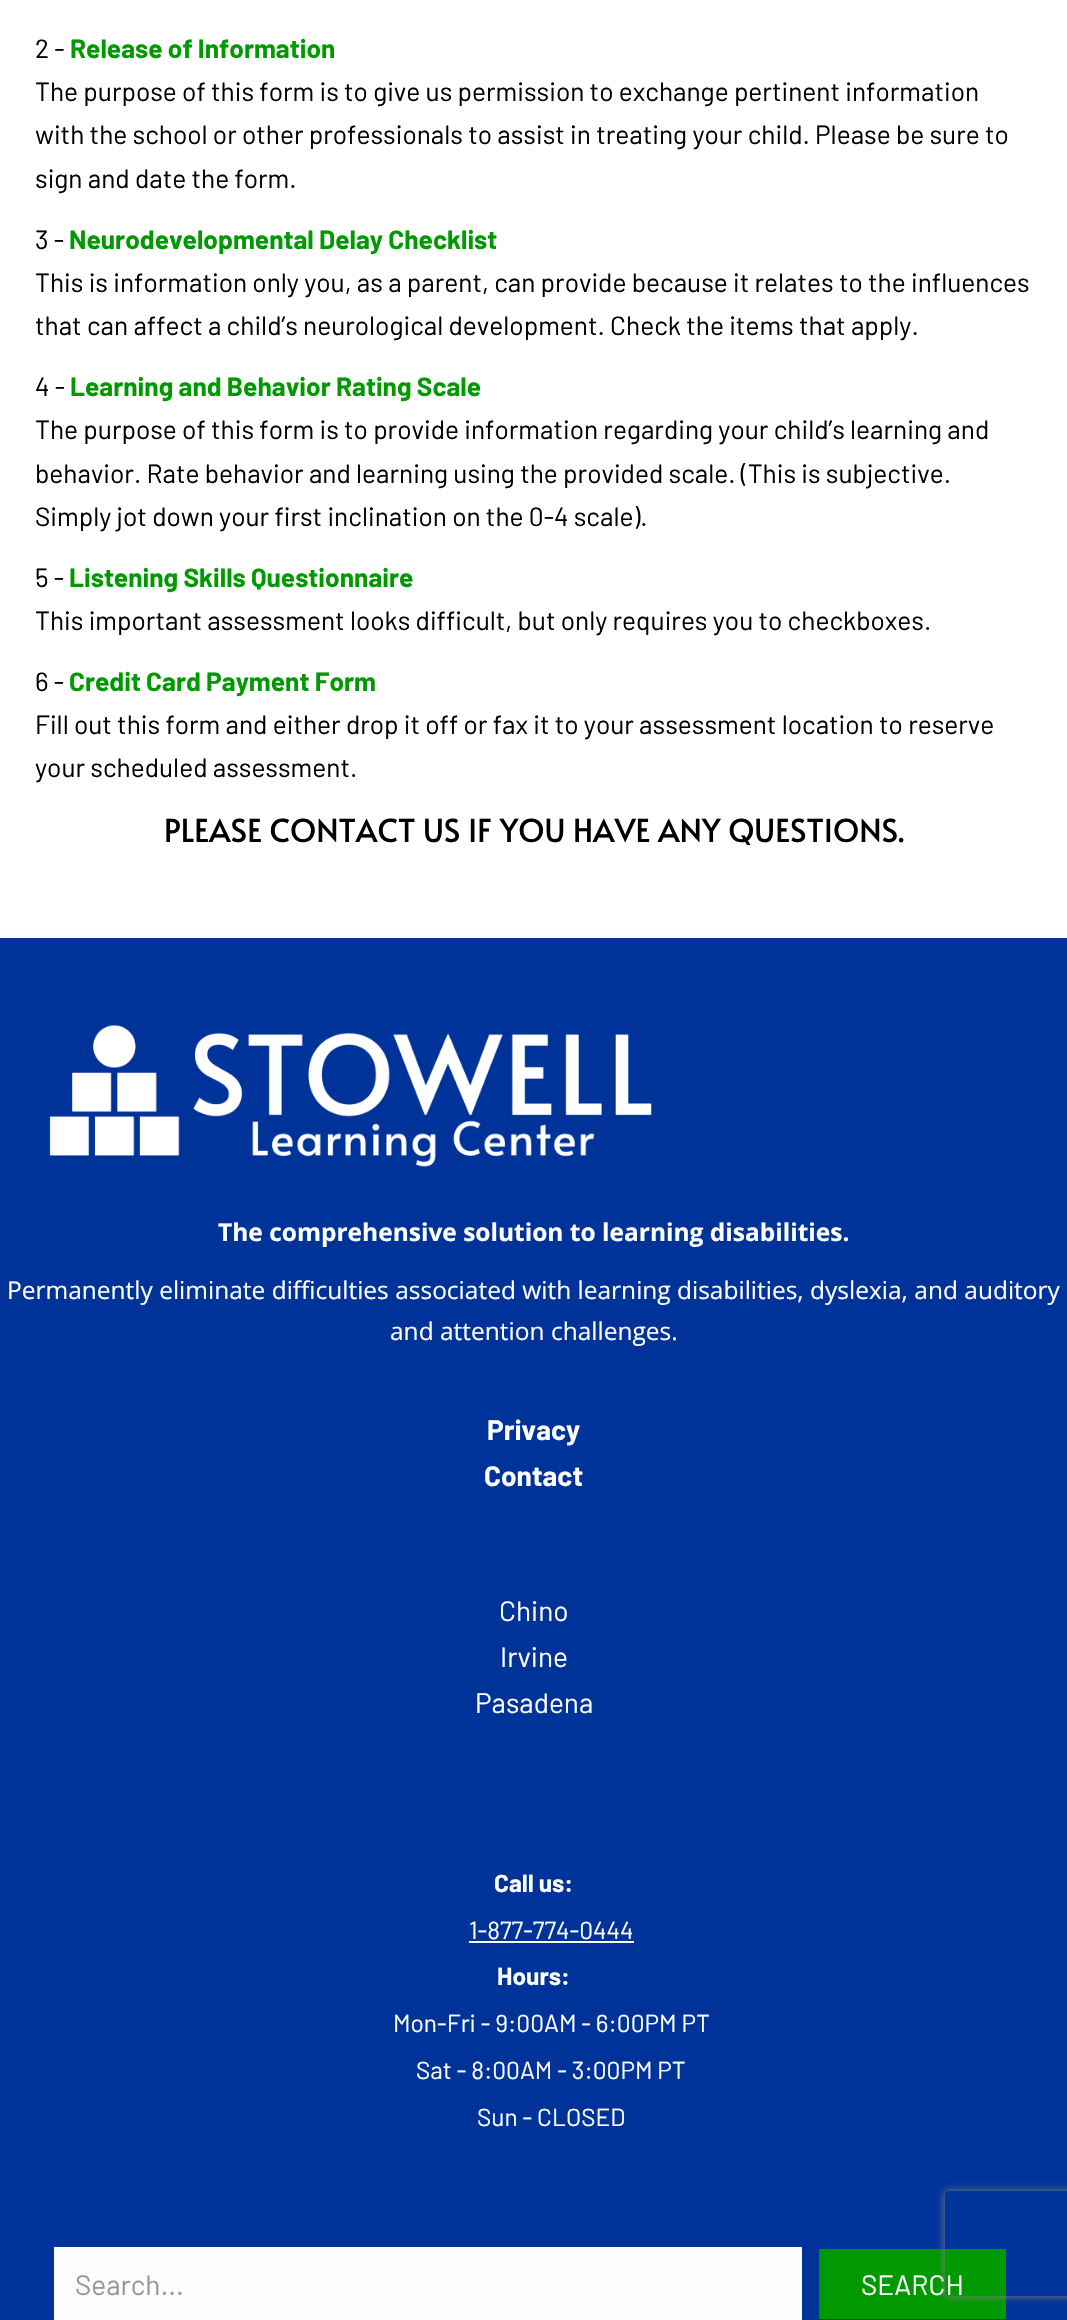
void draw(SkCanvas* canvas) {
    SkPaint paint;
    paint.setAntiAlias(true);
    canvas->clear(0xFFFFFFFF);
    SkFont font1(fontMgr->matchFamilyStyle("Barlow", SkFontStyle::Normal()), 26.25f);
    font1.setSubpixel(true);
    paint.setColor(0xFF000000);
    canvas->drawString("2 -", 35, 58, font1, paint);
    SkFont font2(fontMgr->matchFamilyStyle("Barlow", SkFontStyle::Bold()), 26.25f);
    font2.setSubpixel(true);
    paint.setColor(0xFF009900);
    canvas->drawString("Release of Information", 70, 58, font2, paint);
    paint.setColor(0xFF000000);
    canvas->drawString("The purpose of this form is to give us permission to exchange pertinent information", 35, 101, font1, paint);
    canvas->drawString("with the school or other professionals to assist in treating your child. Please be sure to", 35, 144, font1, paint);
    canvas->drawString("sign and date the form.", 35, 188, font1, paint);
    canvas->drawString("3 -", 35, 249, font1, paint);
    paint.setColor(0xFF009900);
    canvas->drawString("Neurodevelopmental Delay Checklist", 69, 249, font2, paint);
    paint.setColor(0xFF000000);
    canvas->drawString("This is information only you, as a parent, can provide because it relates to the influences", 35, 292, font1, paint);
    canvas->drawString("that can affect a child’s neurological development. Check the items that apply.", 35, 335, font1, paint);
    canvas->drawString("4 -", 35, 396, font1, paint);
    paint.setColor(0xFF009900);
    canvas->drawString("Learning and Behavior Rating Scale", 70, 396, font2, paint);
    paint.setColor(0xFF000000);
    canvas->drawString("The purpose of this form is to provide information regarding your child’s learning and", 35, 439, font1, paint);
    canvas->drawString("behavior. Rate behavior and learning using the provided scale. (This is subjective.", 35, 483, font1, paint);
    canvas->drawString("Simply jot down your first inclination on the 0-4 scale).", 35, 526, font1, paint);
    canvas->drawString("5 -", 35, 587, font1, paint);
    paint.setColor(0xFF009900);
    canvas->drawString("Listening Skills Questionnaire", 69, 587, font2, paint);
    paint.setColor(0xFF000000);
    canvas->drawString("This important assessment looks difficult, but only requires you to checkboxes.", 35, 630, font1, paint);
    canvas->drawString("6 -", 35, 691, font1, paint);
    paint.setColor(0xFF009900);
    canvas->drawString("Credit Card Payment Form", 69, 691, font2, paint);
    paint.setColor(0xFF000000);
    canvas->drawString("Fill out this form and either drop it off or fax it to your assessment location to reserve", 35, 734, font1, paint);
    canvas->drawString("your scheduled assessment.", 35, 777, font1, paint);
    SkFont font3(fontMgr->matchFamilyStyle("Alata", SkFontStyle::Normal()), 31.5f);
    font3.setSubpixel(true);
    canvas->drawString("PLEASE CONTACT US IF YOU HAVE ANY QUESTIONS.", 164, 842, font3, paint);
    paint.setColor(0xFF003399);
    canvas->drawRect(SkRect::MakeXYWH(0, 938, 1067, 1382), paint);
    canvas->drawImageRect(SkImages::DeferredFromEncodedData(SkData::MakeFromFileName("img1.png")), SkRect::MakeXYWH(49, 1024, 603, 143), SkSamplingOptions());
    SkFont font4(fontMgr->matchFamilyStyle("Open Sans", SkFontStyle::Bold()), 24.5f);
    font4.setSubpixel(true);
    paint.setColor(0xFFFFFFFF);
    canvas->drawString("The comprehensive solution to learning disabilities.", 218, 1241, font4, paint);
    SkFont font5(fontMgr->matchFamilyStyle("Open Sans", SkFontStyle::Normal()), 24.5f);
    font5.setSubpixel(true);
    canvas->drawString("Permanently eliminate difficulties associated with learning disabilities, dyslexia, and auditory", 7, 1299, font5, paint);
    canvas->drawString("and attention challenges.", 390, 1340, font5, paint);
    SkFont font6(fontMgr->matchFamilyStyle("Barlow", SkFontStyle::Bold()), 28);
    font6.setSubpixel(true);
    canvas->drawString("Privacy", 487, 1440, font6, paint);
    canvas->drawString("Contact", 484, 1486, font6, paint);
    SkFont font7(fontMgr->matchFamilyStyle("Barlow", SkFontStyle::Normal()), 28);
    font7.setSubpixel(true);
    canvas->drawString("Chino", 499, 1621, font7, paint);
    canvas->drawString("Irvine", 500, 1667, font7, paint);
    canvas->drawString("Pasadena", 475, 1713, font7, paint);
    SkFont font8(fontMgr->matchFamilyStyle("Barlow", SkFontStyle::Bold()), 24.5f);
    font8.setSubpixel(true);
    canvas->drawString("Call us:", 494, 1892, font8, paint);
    SkFont font9(fontMgr->matchFamilyStyle("Barlow", SkFontStyle::Normal()), 24.5f);
    font9.setSubpixel(true);
    canvas->drawString("1-877-774-0444", 469, 1939, font9, paint);
    canvas->drawRect(SkRect::MakeXYWH(469, 1941, 165, 2), paint);
    canvas->drawString("Hours:", 497, 1985, font8, paint);
    canvas->drawString("Mon-Fri - 9:00AM - 6:00PM PT", 393, 2032, font9, paint);
    canvas->drawString("Sat - 8:00AM - 3:00PM PT", 416, 2079, font9, paint);
    canvas->drawString("Sun - CLOSED", 477, 2126, font9, paint);
    paint.setColor(0xFFFCFCFC);
    canvas->drawRect(SkRect::MakeXYWH(54, 2247, 748, 73), paint);
    paint.setColor(0xFF979797);
    canvas->drawString("Search...", 75, 2295, font7, paint);
    paint.setColor(0xFF009900);
    canvas->drawRect(SkRect::MakeXYWH(819, 2249, 187, 70), paint);
    paint.setColor(0xFFFFFFFF);
    canvas->drawString("SEARCH", 861, 2295, font7, paint);
    canvas->save();
    canvas->clipPath(SkPathBuilder(SkPathFillType::kEvenOdd).moveTo(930, 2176).lineTo(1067, 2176).lineTo(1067, 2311).lineTo(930, 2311).close().moveTo(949, 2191).lineTo(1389, 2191).cubicTo(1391, 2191, 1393, 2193, 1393, 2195).lineTo(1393, 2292).cubicTo(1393, 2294, 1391, 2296, 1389, 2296).lineTo(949, 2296).cubicTo(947, 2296, 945, 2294, 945, 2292).lineTo(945, 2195).cubicTo(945, 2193, 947, 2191, 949, 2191).close().detach(), true);
    paint.setColor(0xFF808080);
    paint.setMaskFilter(SkMaskFilter::MakeBlur(kNormal_SkBlurStyle, 4.5f));
    canvas->drawRoundRect(SkRect::MakeXYWH(945, 2191, 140, 105), 4, 4, paint);
    paint.setMaskFilter(nullptr);
    canvas->restore();
}
